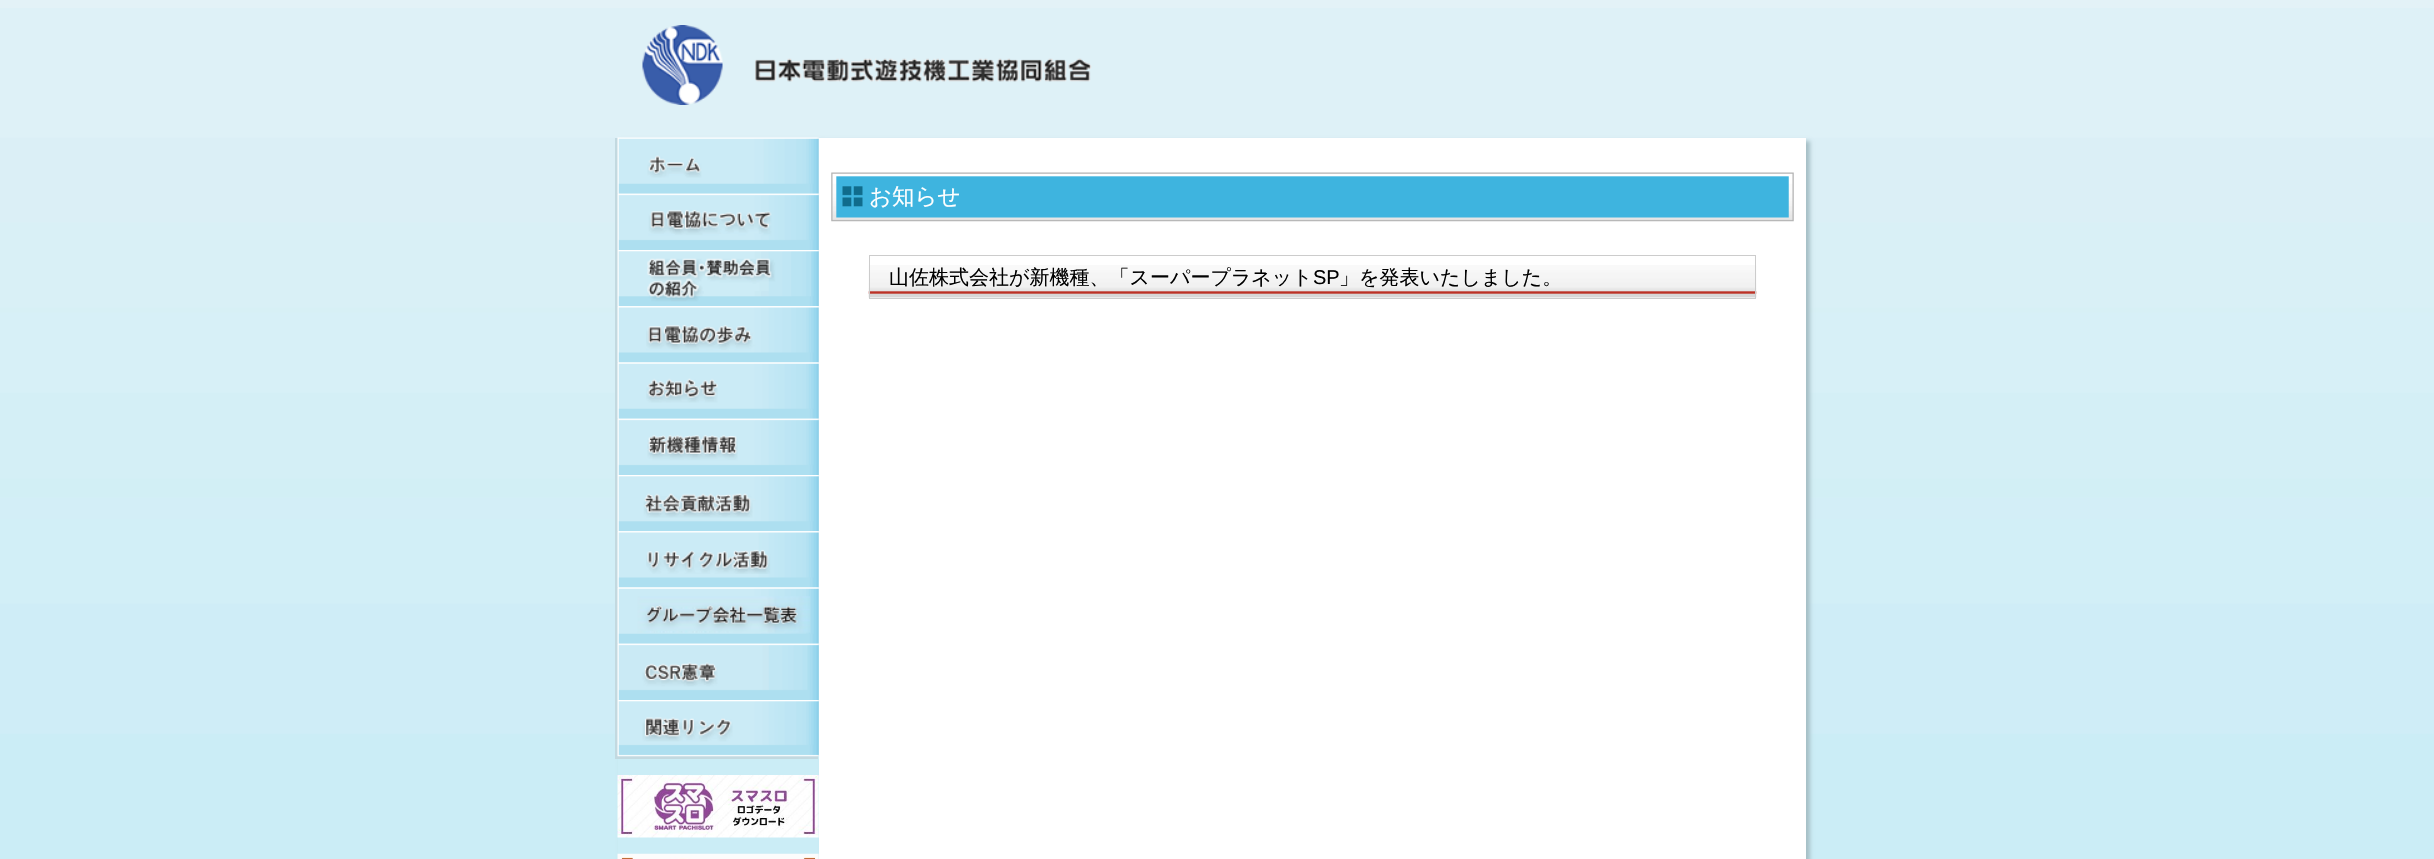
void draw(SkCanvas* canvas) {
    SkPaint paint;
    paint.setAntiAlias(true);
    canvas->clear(0xFFE3F2F7);
    canvas->drawImageRect(SkImages::DeferredFromEncodedData(SkData::MakeFromFileName("img1.png")), SkRect::MakeXYWH(0, 8, 2434, 851), SkSamplingOptions());
    canvas->drawImageRect(SkImages::DeferredFromEncodedData(SkData::MakeFromFileName("img2.png")), SkRect::MakeXYWH(642, 25, 81, 80), SkSamplingOptions());
    canvas->drawImageRect(SkImages::DeferredFromEncodedData(SkData::MakeFromFileName("img3.png")), SkRect::MakeXYWH(755, 58, 337, 24), SkSamplingOptions());
    canvas->save();
    canvas->clipPath(SkPathBuilder(SkPathFillType::kEvenOdd).moveTo(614, 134).lineTo(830, 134).lineTo(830, 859).lineTo(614, 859).close().moveTo(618, 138).lineTo(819, 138).lineTo(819, 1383).lineTo(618, 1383).close().detach(), true);
    paint.setColor(0xFFA6BFC6);
    paint.setMaskFilter(SkMaskFilter::MakeBlur(kNormal_SkBlurStyle, 2));
    canvas->drawRect(SkRect::MakeXYWH(621, 141, 202, 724), paint);
    paint.setMaskFilter(nullptr);
    canvas->restore();
    canvas->drawImageRect(SkImages::DeferredFromEncodedData(SkData::MakeFromFileName("img15.png")), SkRect::MakeXYWH(617, 775, 202, 63), SkSamplingOptions());
    canvas->drawImageRect(SkImages::DeferredFromEncodedData(SkData::MakeFromFileName("img16.png")), SkRect::MakeXYWH(617, 853, 202, 6), SkSamplingOptions());
    paint.setMaskFilter(SkMaskFilter::MakeBlur(kNormal_SkBlurStyle, 2));
    canvas->drawRect(SkRect::MakeXYWH(823, 141, 987, 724), paint);
    paint.setMaskFilter(nullptr);
    paint.setColor(0xFFC2D9E0);
    canvas->drawRect(SkRect::MakeXYWH(615, 138, 203, 621), paint);
    paint.setColor(0xFFFFFFFF);
    canvas->drawRect(SkRect::MakeXYWH(618, 138, 201, 56), paint);
    canvas->drawImageRect(SkImages::DeferredFromEncodedData(SkData::MakeFromFileName("img4.png")), SkRect::MakeXYWH(617, 137, 202, 57), SkSamplingOptions());
    canvas->drawImageRect(SkImages::DeferredFromEncodedData(SkData::MakeFromFileName("img5.png")), SkRect::MakeXYWH(617, 193, 202, 57), SkSamplingOptions());
    canvas->drawRect(SkRect::MakeXYWH(618, 306, 201, 113), paint);
    canvas->drawImageRect(SkImages::DeferredFromEncodedData(SkData::MakeFromFileName("img6.png")), SkRect::MakeXYWH(617, 250, 202, 57), SkSamplingOptions());
    canvas->drawImageRect(SkImages::DeferredFromEncodedData(SkData::MakeFromFileName("img7.png")), SkRect::MakeXYWH(617, 306, 202, 57), SkSamplingOptions());
    canvas->drawImageRect(SkImages::DeferredFromEncodedData(SkData::MakeFromFileName("img8.png")), SkRect::MakeXYWH(617, 362, 202, 57), SkSamplingOptions());
    canvas->drawImageRect(SkImages::DeferredFromEncodedData(SkData::MakeFromFileName("img9.png")), SkRect::MakeXYWH(617, 418, 202, 57), SkSamplingOptions());
    canvas->drawRect(SkRect::MakeXYWH(618, 531, 201, 113), paint);
    canvas->drawImageRect(SkImages::DeferredFromEncodedData(SkData::MakeFromFileName("img10.png")), SkRect::MakeXYWH(617, 475, 202, 57), SkSamplingOptions());
    canvas->drawImageRect(SkImages::DeferredFromEncodedData(SkData::MakeFromFileName("img11.png")), SkRect::MakeXYWH(617, 531, 202, 57), SkSamplingOptions());
    canvas->drawImageRect(SkImages::DeferredFromEncodedData(SkData::MakeFromFileName("img12.png")), SkRect::MakeXYWH(617, 587, 202, 57), SkSamplingOptions());
    canvas->drawImageRect(SkImages::DeferredFromEncodedData(SkData::MakeFromFileName("img13.png")), SkRect::MakeXYWH(617, 643, 202, 57), SkSamplingOptions());
    canvas->drawImageRect(SkImages::DeferredFromEncodedData(SkData::MakeFromFileName("img14.png")), SkRect::MakeXYWH(617, 700, 202, 57), SkSamplingOptions());
    canvas->drawRect(SkRect::MakeXYWH(819, 138, 987, 721), paint);
    canvas->drawImageRect(SkImages::DeferredFromEncodedData(SkData::MakeFromFileName("img17.png")), SkRect::MakeXYWH(831, 172, 963, 50), SkSamplingOptions());
    SkFont font1(fontMgr->matchFamilyStyle("WenQuanYi Zen Hei", SkFontStyle(500, SkFontStyle::kNormal_Width, SkFontStyle::kUpright_Slant)), 22.5f);
    font1.setSubpixel(true);
    canvas->drawString("お知らせ", 869, 204, font1, paint);
    canvas->drawImageRect(SkImages::DeferredFromEncodedData(SkData::MakeFromFileName("img18.png")), SkRect::MakeXYWH(868, 265, 889, 33), SkSamplingOptions());
    paint.setStyle(SkPaint::kStroke_Style);
    paint.setStrokeWidth(1);
    paint.setColor(0xFFCCCCCC);
    canvas->drawRect(SkRect::MakeXYWH(869.5f, 255.5f, 886, 43), paint);
    SkFont font2(fontMgr->matchFamilyStyle("WenQuanYi Zen Hei", SkFontStyle(500, SkFontStyle::kNormal_Width, SkFontStyle::kUpright_Slant)), 20);
    font2.setSubpixel(true);
    paint.setStyle(SkPaint::kFill_Style);
    paint.setColor(0xFF000000);
    canvas->drawString("山佐株式会社が新機種、「スーパープラネット", 889, 284, font2, paint);
    SkFont font3(fontMgr->matchFamilyStyle("Liberation Sans", SkFontStyle::Normal()), 20);
    font3.setSubpixel(true);
    canvas->drawString("SP", 1313, 284, font3, paint);
    canvas->drawString("」を発表いたしました。", 1339, 284, font2, paint);
}
